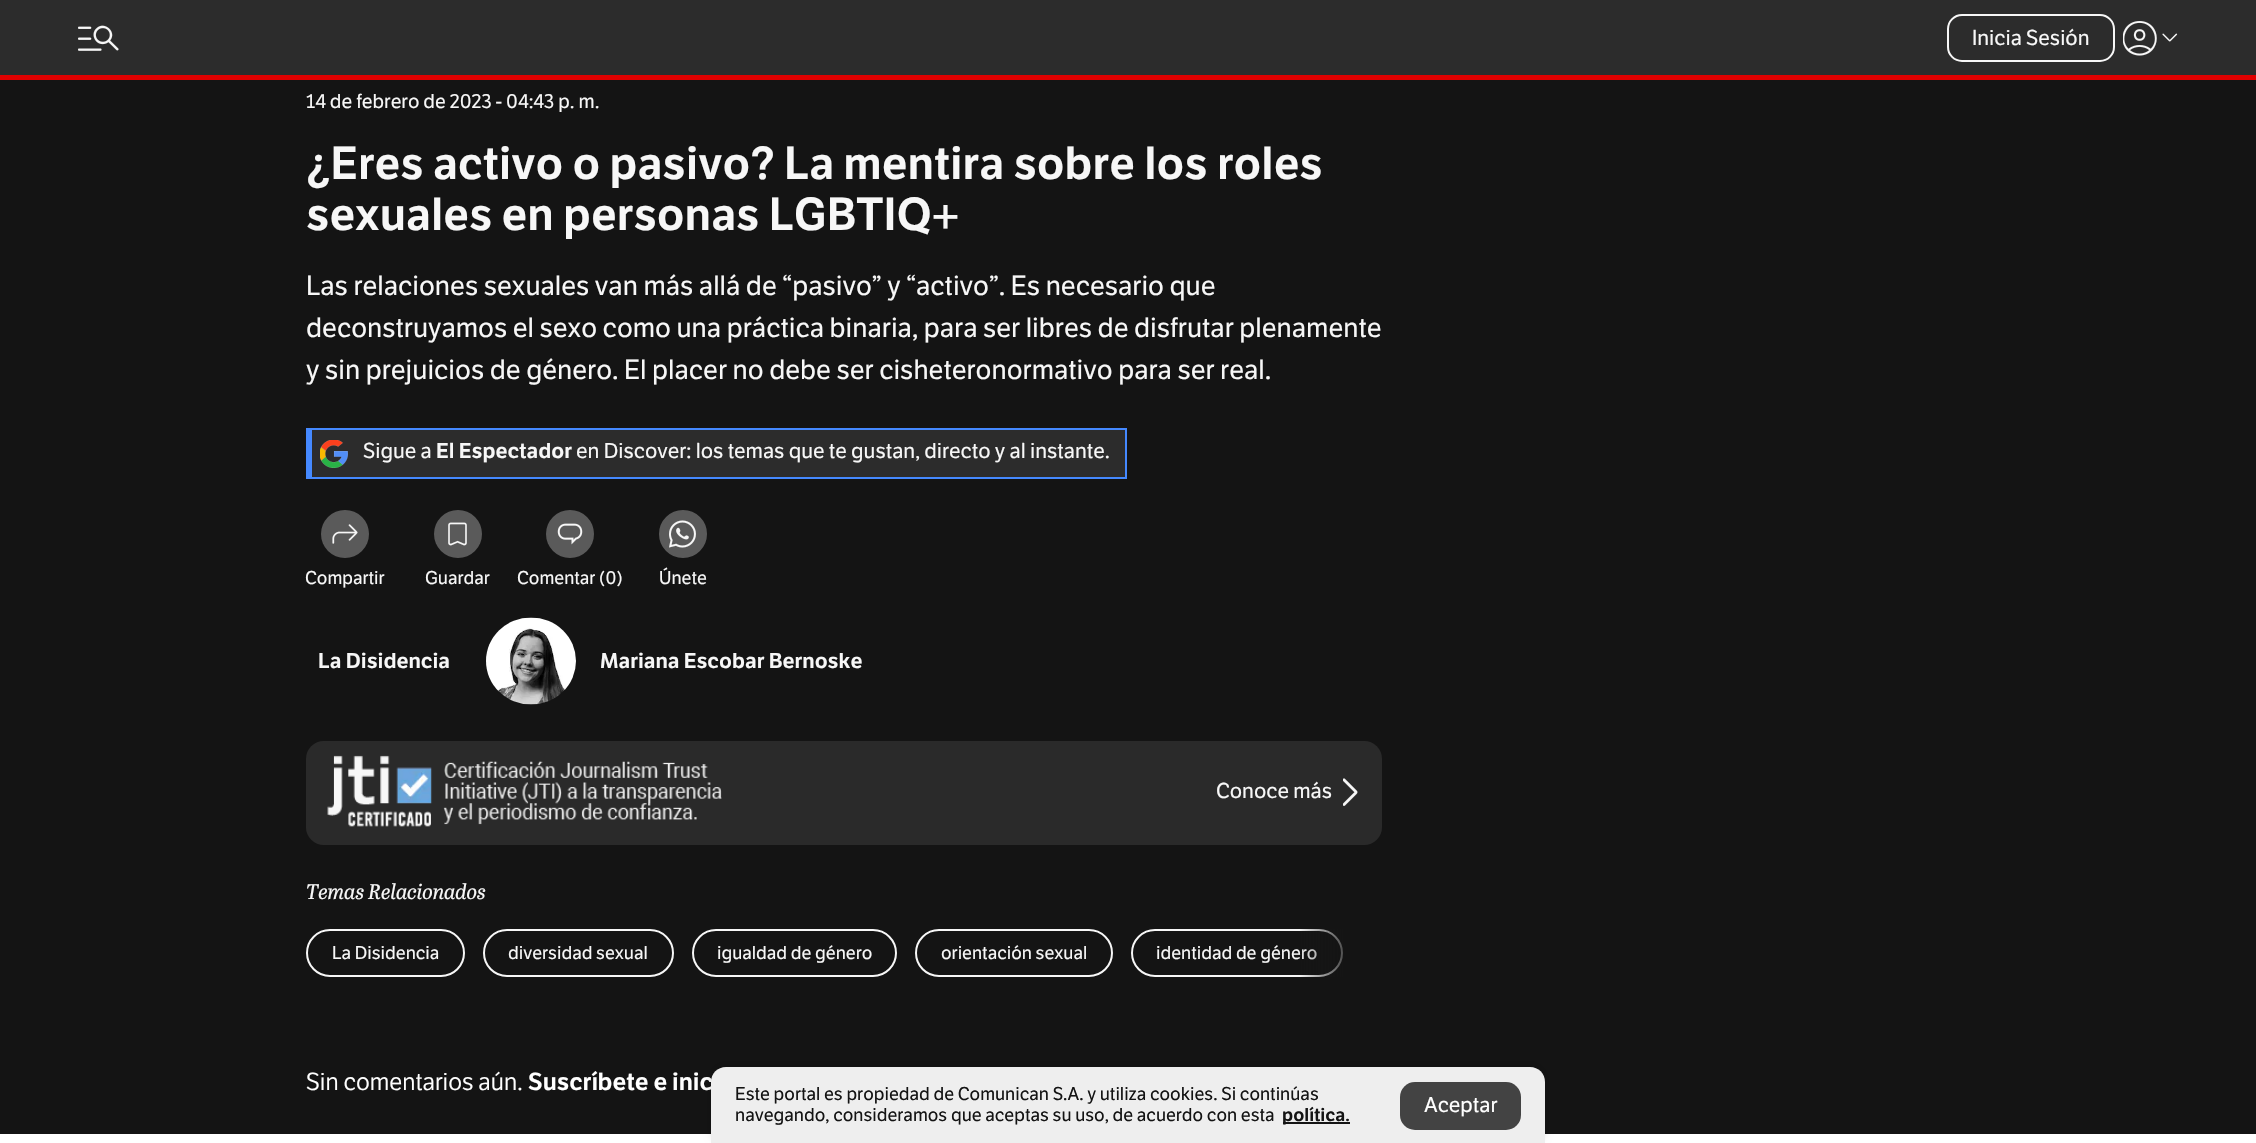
void draw(SkCanvas* canvas) {
    SkPaint paint;
    paint.setAntiAlias(true);
    canvas->clear(0xFF141414);
    paint.setColor(0xFF2C2C2C);
    canvas->drawRect(SkRect::MakeXYWH(0, 0, 2256, 75), paint);
    canvas->drawImageRect(SkImages::DeferredFromEncodedData(SkData::MakeFromFileName("img1.png")), SkRect::MakeXYWH(78, 25, 41, 26), SkSamplingOptions());
    paint.setStyle(SkPaint::kStroke_Style);
    paint.setStrokeWidth(2);
    paint.setColor(0xFFF7F7F7);
    canvas->drawRoundRect(SkRect::MakeXYWH(1948, 15, 166, 46), 14, 14, paint);
    SkFont font1(fontMgr->matchFamilyStyle("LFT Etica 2", SkFontStyle::Normal()), 21);
    font1.setSubpixel(true);
    paint.setStyle(SkPaint::kFill_Style);
    canvas->drawString("Inicia Sesión", 1972, 45, font1, paint);
    canvas->drawImageRect(SkImages::DeferredFromEncodedData(SkData::MakeFromFileName("img2.png")), SkRect::MakeXYWH(2123, 21, 34, 35), SkSamplingOptions());
    canvas->drawImageRect(SkImages::DeferredFromEncodedData(SkData::MakeFromFileName("img3.png")), SkRect::MakeXYWH(2162, 33, 16, 9), SkSamplingOptions());
    paint.setColor(0xFFE00000);
    canvas->drawRect(SkRect::MakeXYWH(0, 75, 2256, 5), paint);
    SkFont font2(fontMgr->matchFamilyStyle("LFT Etica 2", SkFontStyle::Normal()), 19.5f);
    font2.setSubpixel(true);
    paint.setColor(0xFFF7F7F7);
    canvas->drawString("14 de febrero de 2023 - 04:43 p. m.", 306, 108, font2, paint);
    SkFont font3(fontMgr->matchFamilyStyle("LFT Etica", SkFontStyle(600, SkFontStyle::kNormal_Width, SkFontStyle::kUpright_Slant)), 45);
    font3.setSubpixel(true);
    canvas->drawString("¿Eres activo o pasivo? La mentira sobre los roles", 306, 179, font3, paint);
    canvas->drawString("sexuales en personas LGBTIQ+", 306, 230, font3, paint);
    SkFont font4(fontMgr->matchFamilyStyle("LFT Etica 2", SkFontStyle::Normal()), 27);
    font4.setSubpixel(true);
    canvas->drawString("Las relaciones sexuales van más allá de “pasivo” y “activo”. Es necesario que", 306, 295, font4, paint);
    canvas->drawString("deconstruyamos el sexo como una práctica binaria, para ser libres de disfrutar plenamente", 306, 337, font4, paint);
    canvas->drawString("y sin prejuicios de género. El placer no debe ser cisheteronormativo para ser real.", 306, 379, font4, paint);
    paint.setColor(0xFF2C2C2C);
    canvas->drawRect(SkRect::MakeXYWH(312, 430, 813, 47), paint);
    paint.setColor(0xFF4589FF);
    canvas->drawRect(SkRect::MakeXYWH(306, 428, 821, 2), paint);
    canvas->drawRect(SkRect::MakeXYWH(1125, 428, 2, 51), paint);
    canvas->drawRect(SkRect::MakeXYWH(306, 477, 821, 2), paint);
    canvas->drawRect(SkRect::MakeXYWH(306, 428, 6, 51), paint);
    canvas->drawImageRect(SkImages::DeferredFromEncodedData(SkData::MakeFromFileName("img4.png")), SkRect::MakeXYWH(320, 440, 28, 28), SkSamplingOptions());
    paint.setColor(0xFFF7F7F7);
    canvas->drawString("Sigue a", 363, 458, font1, paint);
    SkFont font5(fontMgr->matchFamilyStyle("LFT Etica", SkFontStyle(600, SkFontStyle::kNormal_Width, SkFontStyle::kUpright_Slant)), 21);
    font5.setSubpixel(true);
    canvas->drawString("El Espectador", 436, 458, font5, paint);
    canvas->drawString("en Discover: los temas que te gustan, directo y al instante.", 576, 458, font1, paint);
    paint.setColor(0xFF5A5A5A);
    canvas->drawCircle(345, 534, 24, paint);
    canvas->drawImageRect(SkImages::DeferredFromEncodedData(SkData::MakeFromFileName("img5.png")), SkRect::MakeXYWH(332, 524, 26, 20), SkSamplingOptions());
    SkFont font6(fontMgr->matchFamilyStyle("LFT Etica 2", SkFontStyle::Normal()), 18);
    font6.setSubpixel(true);
    paint.setColor(0xFFF7F7F7);
    canvas->drawString("Compartir", 305, 584, font6, paint);
    paint.setColor(0xFF5A5A5A);
    canvas->drawCircle(458, 534, 24, paint);
    canvas->drawImageRect(SkImages::DeferredFromEncodedData(SkData::MakeFromFileName("img6.png")), SkRect::MakeXYWH(448, 522, 19, 24), SkSamplingOptions());
    paint.setColor(0xFFF7F7F7);
    canvas->drawString("Guardar", 425, 584, font6, paint);
    paint.setColor(0xFF5A5A5A);
    canvas->drawCircle(570, 534, 24, paint);
    canvas->drawImageRect(SkImages::DeferredFromEncodedData(SkData::MakeFromFileName("img7.png")), SkRect::MakeXYWH(557, 523, 26, 22), SkSamplingOptions());
    paint.setColor(0xFFF7F7F7);
    canvas->drawString("Comentar (0)", 517, 584, font6, paint);
    paint.setColor(0xFF5A5A5A);
    canvas->drawCircle(683, 534, 19.5f, paint);
    paint.setStyle(SkPaint::kStroke_Style);
    paint.setStrokeWidth(9);
    canvas->drawCircle(683, 534, 19.5f, paint);
    canvas->drawImageRect(SkImages::DeferredFromEncodedData(SkData::MakeFromFileName("img8.png")), SkRect::MakeXYWH(669, 520, 27, 28), SkSamplingOptions());
    paint.setStyle(SkPaint::kFill_Style);
    paint.setColor(0xFFF7F7F7);
    canvas->drawString("Únete", 659, 584, font6, paint);
    canvas->drawString("La Disidencia", 318, 668, font5, paint);
    canvas->drawImageRect(SkImages::DeferredFromEncodedData(SkData::MakeFromFileName("img9.png")), SkRect::MakeXYWH(486, 617, 90, 88), SkSamplingOptions());
    canvas->drawString("Mariana Escobar Bernoske", 600, 668, font5, paint);
    paint.setColor(0xFF2A2A2A);
    canvas->drawRoundRect(SkRect::MakeXYWH(306, 741, 1076, 104), 18, 18, paint);
    canvas->drawImageRect(SkImages::DeferredFromEncodedData(SkData::MakeFromFileName("img10.png")), SkRect::MakeXYWH(327, 755, 395, 72), SkSamplingOptions());
    paint.setColor(0xFFF7F7F7);
    canvas->drawString("Conoce más", 1216, 798, font1, paint);
    canvas->drawImageRect(SkImages::DeferredFromEncodedData(SkData::MakeFromFileName("img11.png")), SkRect::MakeXYWH(1343, 778, 15, 28), SkSamplingOptions());
    SkFont font7(fontMgr->matchFamilyStyle("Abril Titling", SkFontStyle::Italic()), 21);
    font7.setSubpixel(true);
    canvas->drawString("Temas Relacionados", 306, 899, font7, paint);
    paint.setStyle(SkPaint::kStroke_Style);
    paint.setStrokeWidth(2);
    canvas->drawRoundRect(SkRect::MakeXYWH(307, 930, 157, 46), 23, 23, paint);
    paint.setStyle(SkPaint::kFill_Style);
    canvas->drawString("La Disidencia", 332, 959, font6, paint);
    paint.setStyle(SkPaint::kStroke_Style);
    canvas->drawRoundRect(SkRect::MakeXYWH(484, 930, 189, 46), 23, 23, paint);
    paint.setStyle(SkPaint::kFill_Style);
    canvas->drawString("diversidad sexual", 508, 959, font6, paint);
    paint.setStyle(SkPaint::kStroke_Style);
    canvas->drawRoundRect(SkRect::MakeXYWH(693, 930, 203, 46), 23, 23, paint);
    paint.setStyle(SkPaint::kFill_Style);
    canvas->drawString("igualdad de género", 717, 959, font6, paint);
    paint.setStyle(SkPaint::kStroke_Style);
    canvas->drawRoundRect(SkRect::MakeXYWH(916, 930, 196, 46), 23, 23, paint);
    paint.setStyle(SkPaint::kFill_Style);
    canvas->drawString("orientación sexual", 941, 959, font6, paint);
    paint.setStyle(SkPaint::kStroke_Style);
    canvas->drawRoundRect(SkRect::MakeXYWH(1132, 930, 210, 46), 23, 23, paint);
    paint.setStyle(SkPaint::kFill_Style);
    canvas->drawString("identidad de género", 1156, 959, font6, paint);
    {
        const SkColor colors[] = {0xFF141414, 0x00141414};
        const float stops[] = {0.6f, 1};
        const SkPoint ends[] = {{1449, 952}, {1299, 952}};
        paint.setShader(SkGradientShader::MakeLinear(ends, colors, stops, 2, SkTileMode::kClamp));
        paint.setAlpha(255);
    }
    canvas->drawRect(SkRect::MakeXYWH(1300, 929, 43, 48), paint);
    SkFont font8(fontMgr->matchFamilyStyle("LFT Etica", SkFontStyle::Normal()), 24);
    font8.setSubpixel(true);
    paint.setShader(nullptr);
    paint.setColor(0xFFFFFFFF);
    canvas->drawString("Sin comentarios aún.", 306, 1090, font8, paint);
    SkFont font9(fontMgr->matchFamilyStyle("LFT Etica", SkFontStyle(600, SkFontStyle::kNormal_Width, SkFontStyle::kUpright_Slant)), 24);
    font9.setSubpixel(true);
    canvas->drawString("Suscríbete e inic", 528, 1090, font9, paint);
    canvas->drawRect(SkRect::MakeXYWH(0, 1134, 2256, 9), paint);
    paint.setColor(0x29000000);
    paint.setMaskFilter(SkMaskFilter::MakeBlur(kNormal_SkBlurStyle, 4.5f));
    canvas->drawRoundRect(SkRect::MakeXYWH(711, 1065, 834, 77), 15, 15, paint);
    paint.setMaskFilter(nullptr);
    paint.setColor(0xFFEEEEEE);
    canvas->drawPath(SkPathBuilder().moveTo(726, 1067).lineTo(1530, 1067).cubicTo(1538.5f, 1067, 1545, 1073.5f, 1545, 1082).lineTo(1545, 1143).lineTo(711, 1143).lineTo(711, 1082).cubicTo(711, 1073.5f, 717.5f, 1067, 726, 1067).close().detach(), paint);
    paint.setColor(0xFF141414);
    canvas->drawString("Este portal es propiedad de Comunican S.A. y utiliza cookies. Si continúas", 735, 1100, font6, paint);
    canvas->drawString("navegando, consideramos que aceptas su uso, de acuerdo con esta", 735, 1121, font6, paint);
    canvas->drawRect(SkRect::MakeXYWH(1283, 1122, 67, 2), paint);
    SkFont font10(fontMgr->matchFamilyStyle("LFT Etica", SkFontStyle(600, SkFontStyle::kNormal_Width, SkFontStyle::kUpright_Slant)), 18);
    font10.setSubpixel(true);
    canvas->drawString("política.", 1282, 1121, font10, paint);
    paint.setColor(0xFF434343);
    canvas->drawRoundRect(SkRect::MakeXYWH(1400, 1082, 121, 48), 15, 15, paint);
    paint.setColor(0xFFFFFFFF);
    canvas->drawString("Aceptar", 1424, 1112, font1, paint);
}
